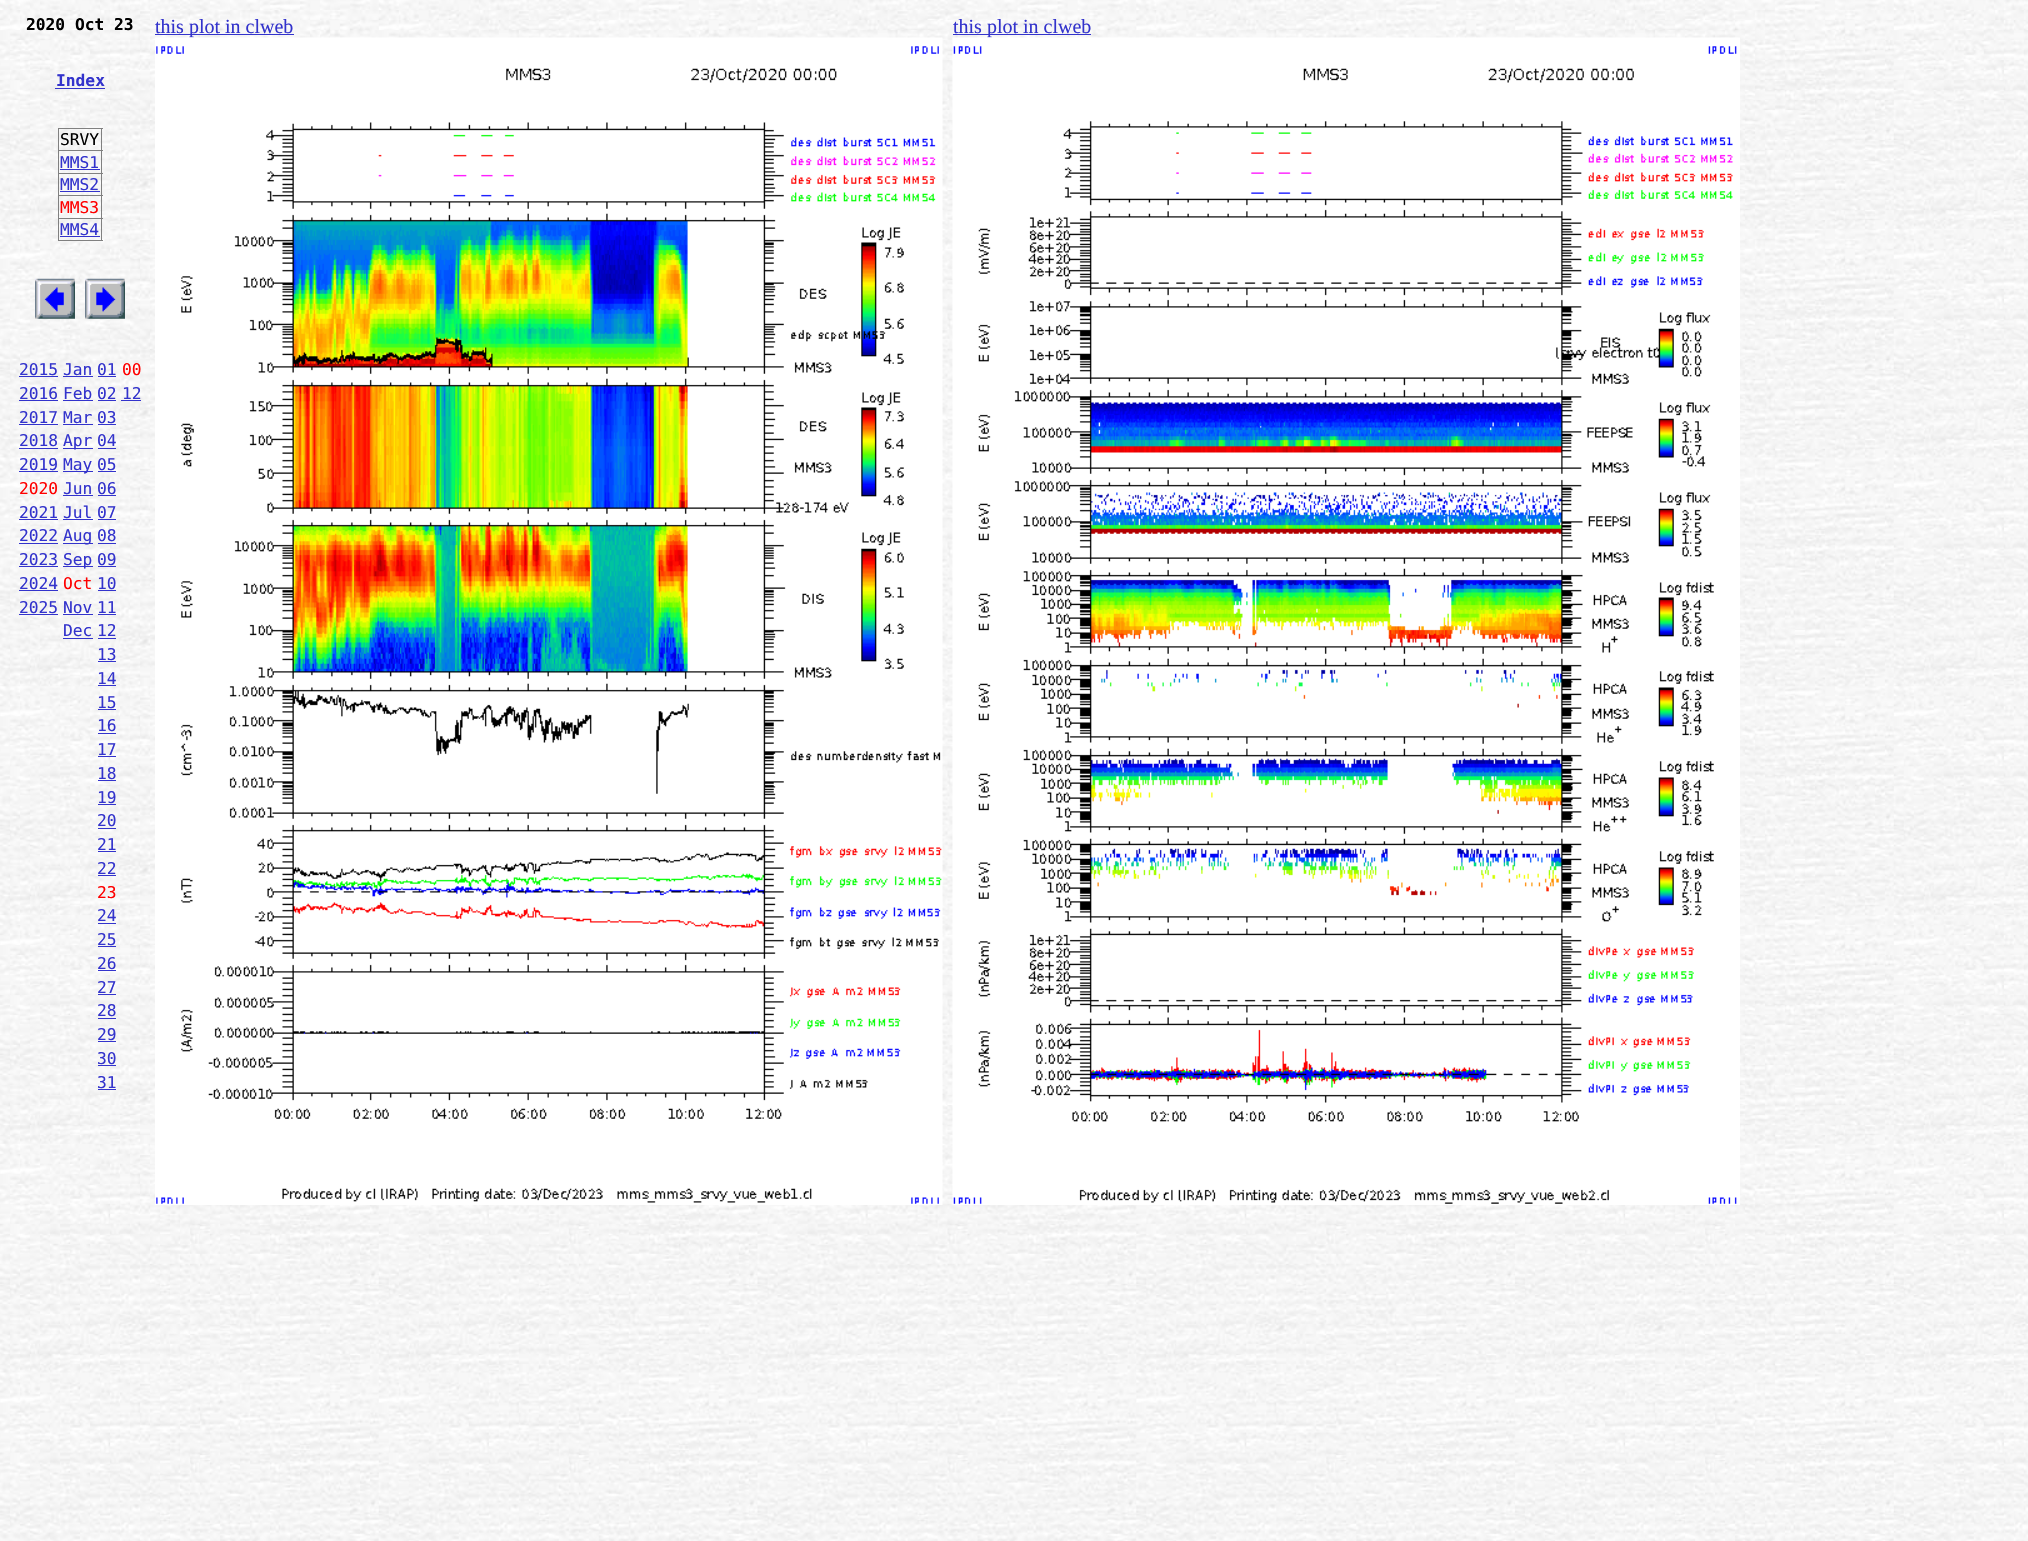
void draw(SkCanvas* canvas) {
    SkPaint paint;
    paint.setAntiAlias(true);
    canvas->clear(0xFFFFFFFF);
    canvas->drawImageRect(SkImages::DeferredFromEncodedData(SkData::MakeFromFileName("img1.png")), SkRect::MakeXYWH(0, 0, 2028, 1541), SkSamplingOptions());
    SkFont font1(fontMgr->matchFamilyStyle("DejaVu Sans Mono", SkFontStyle::Bold()), 16.25f);
    font1.setSubpixel(true);
    paint.setColor(0xFF000000);
    canvas->drawString("2020 Oct 23", 26, 30, font1, paint);
    paint.setColor(0xFF3333CC);
    canvas->drawString("Index", 56, 86, font1, paint);
    canvas->drawRect(SkRect::MakeXYWH(55, 88, 50, 1), paint);
    paint.setColor(0xFF808080);
    canvas->drawRect(SkRect::MakeXYWH(58, 128, 45, 1), paint);
    canvas->drawRect(SkRect::MakeXYWH(101, 128, 1, 113), paint);
    canvas->drawRect(SkRect::MakeXYWH(58, 240, 45, 1), paint);
    canvas->drawRect(SkRect::MakeXYWH(58, 128, 1, 113), paint);
    SkFont font2(fontMgr->matchFamilyStyle("DejaVu Sans Mono", SkFontStyle::Normal()), 16.25f);
    font2.setSubpixel(true);
    paint.setColor(0xFF000000);
    canvas->drawString("SRVY", 60, 145, font2, paint);
    paint.setColor(0xFF808080);
    canvas->drawRect(SkRect::MakeXYWH(58, 150, 45, 1), paint);
    paint.setColor(0xFF3333CC);
    canvas->drawString("MMS1", 60, 168, font2, paint);
    canvas->drawRect(SkRect::MakeXYWH(60, 169, 40, 1), paint);
    paint.setColor(0xFF808080);
    canvas->drawRect(SkRect::MakeXYWH(58, 173, 45, 1), paint);
    paint.setColor(0xFF3333CC);
    canvas->drawString("MMS2", 60, 190, font2, paint);
    canvas->drawRect(SkRect::MakeXYWH(60, 191, 40, 1), paint);
    paint.setColor(0xFF808080);
    canvas->drawRect(SkRect::MakeXYWH(58, 195, 45, 1), paint);
    paint.setColor(0xFFFF0000);
    canvas->drawString("MMS3", 60, 213, font2, paint);
    paint.setColor(0xFF808080);
    canvas->drawRect(SkRect::MakeXYWH(58, 218, 45, 1), paint);
    paint.setColor(0xFF3333CC);
    canvas->drawString("MMS4", 60, 235, font2, paint);
    canvas->drawRect(SkRect::MakeXYWH(60, 236, 40, 1), paint);
    canvas->drawImageRect(SkImages::DeferredFromEncodedData(SkData::MakeFromFileName("img2.png")), SkRect::MakeXYWH(35, 278, 40, 41), SkSamplingOptions());
    canvas->drawImageRect(SkImages::DeferredFromEncodedData(SkData::MakeFromFileName("img3.png")), SkRect::MakeXYWH(85, 278, 40, 41), SkSamplingOptions());
    canvas->drawString("2015", 19, 375, font2, paint);
    canvas->drawRect(SkRect::MakeXYWH(19, 376, 39, 1), paint);
    canvas->drawString("Jan", 63, 375, font2, paint);
    canvas->drawRect(SkRect::MakeXYWH(63, 376, 30, 1), paint);
    canvas->drawString("01", 97, 375, font2, paint);
    canvas->drawRect(SkRect::MakeXYWH(98, 376, 18, 1), paint);
    paint.setColor(0xFFFF0000);
    canvas->drawString("00", 122, 375, font2, paint);
    paint.setColor(0xFF3333CC);
    canvas->drawString("2016", 19, 399, font2, paint);
    canvas->drawRect(SkRect::MakeXYWH(19, 400, 39, 1), paint);
    canvas->drawString("Feb", 63, 399, font2, paint);
    canvas->drawRect(SkRect::MakeXYWH(63, 400, 30, 1), paint);
    canvas->drawString("02", 97, 399, font2, paint);
    canvas->drawRect(SkRect::MakeXYWH(98, 400, 18, 1), paint);
    canvas->drawString("12", 122, 399, font2, paint);
    canvas->drawRect(SkRect::MakeXYWH(121, 400, 20, 1), paint);
    canvas->drawString("2017", 19, 423, font2, paint);
    canvas->drawRect(SkRect::MakeXYWH(19, 424, 39, 1), paint);
    canvas->drawString("Mar", 63, 423, font2, paint);
    canvas->drawRect(SkRect::MakeXYWH(63, 424, 30, 1), paint);
    canvas->drawString("03", 97, 423, font2, paint);
    canvas->drawRect(SkRect::MakeXYWH(98, 424, 18, 1), paint);
    canvas->drawString("2018", 19, 446, font2, paint);
    canvas->drawRect(SkRect::MakeXYWH(19, 448, 39, 1), paint);
    canvas->drawRect(SkRect::MakeXYWH(63, 448, 30, 1), paint);
    canvas->drawString("Apr", 63, 446, font2, paint);
    canvas->drawString("04", 97, 446, font2, paint);
    canvas->drawRect(SkRect::MakeXYWH(98, 448, 18, 1), paint);
    canvas->drawString("2019", 19, 470, font2, paint);
    canvas->drawRect(SkRect::MakeXYWH(19, 471, 39, 1), paint);
    canvas->drawRect(SkRect::MakeXYWH(63, 471, 30, 1), paint);
    canvas->drawString("May", 63, 470, font2, paint);
    canvas->drawString("05", 97, 470, font2, paint);
    canvas->drawRect(SkRect::MakeXYWH(98, 471, 18, 1), paint);
    paint.setColor(0xFFFF0000);
    canvas->drawString("2020", 19, 494, font2, paint);
    paint.setColor(0xFF3333CC);
    canvas->drawString("Jun", 63, 494, font2, paint);
    canvas->drawRect(SkRect::MakeXYWH(63, 495, 30, 1), paint);
    canvas->drawString("06", 97, 494, font2, paint);
    canvas->drawRect(SkRect::MakeXYWH(98, 495, 18, 1), paint);
    canvas->drawString("2021", 19, 518, font2, paint);
    canvas->drawRect(SkRect::MakeXYWH(19, 519, 39, 1), paint);
    canvas->drawString("Jul", 63, 518, font2, paint);
    canvas->drawRect(SkRect::MakeXYWH(63, 519, 30, 1), paint);
    canvas->drawString("07", 97, 518, font2, paint);
    canvas->drawRect(SkRect::MakeXYWH(98, 519, 18, 1), paint);
    canvas->drawString("2022", 19, 541, font2, paint);
    canvas->drawRect(SkRect::MakeXYWH(19, 543, 39, 1), paint);
    canvas->drawRect(SkRect::MakeXYWH(63, 543, 30, 1), paint);
    canvas->drawString("Aug", 63, 541, font2, paint);
    canvas->drawString("08", 97, 541, font2, paint);
    canvas->drawRect(SkRect::MakeXYWH(98, 543, 18, 1), paint);
    canvas->drawString("2023", 19, 565, font2, paint);
    canvas->drawRect(SkRect::MakeXYWH(19, 566, 39, 1), paint);
    canvas->drawRect(SkRect::MakeXYWH(63, 566, 30, 1), paint);
    canvas->drawString("Sep", 63, 565, font2, paint);
    canvas->drawString("09", 97, 565, font2, paint);
    canvas->drawRect(SkRect::MakeXYWH(98, 566, 18, 1), paint);
    canvas->drawString("2024", 19, 589, font2, paint);
    canvas->drawRect(SkRect::MakeXYWH(19, 590, 39, 1), paint);
    paint.setColor(0xFFFF0000);
    canvas->drawString("Oct", 63, 589, font2, paint);
    paint.setColor(0xFF3333CC);
    canvas->drawString("10", 97, 589, font2, paint);
    canvas->drawRect(SkRect::MakeXYWH(98, 590, 18, 1), paint);
    canvas->drawString("2025", 19, 613, font2, paint);
    canvas->drawRect(SkRect::MakeXYWH(19, 614, 39, 1), paint);
    canvas->drawString("Nov", 63, 613, font2, paint);
    canvas->drawRect(SkRect::MakeXYWH(63, 614, 30, 1), paint);
    canvas->drawString("11", 97, 613, font2, paint);
    canvas->drawRect(SkRect::MakeXYWH(98, 614, 18, 1), paint);
    canvas->drawString("Dec", 63, 636, font2, paint);
    canvas->drawRect(SkRect::MakeXYWH(63, 638, 30, 1), paint);
    canvas->drawString("12", 97, 636, font2, paint);
    canvas->drawRect(SkRect::MakeXYWH(98, 638, 18, 1), paint);
    canvas->drawString("13", 97, 660, font2, paint);
    canvas->drawRect(SkRect::MakeXYWH(98, 661, 18, 1), paint);
    canvas->drawString("14", 97, 684, font2, paint);
    canvas->drawRect(SkRect::MakeXYWH(98, 685, 18, 1), paint);
    canvas->drawString("15", 97, 708, font2, paint);
    canvas->drawRect(SkRect::MakeXYWH(98, 709, 18, 1), paint);
    canvas->drawString("16", 97, 731, font2, paint);
    canvas->drawRect(SkRect::MakeXYWH(98, 733, 18, 1), paint);
    canvas->drawString("17", 97, 755, font2, paint);
    canvas->drawRect(SkRect::MakeXYWH(98, 756, 18, 1), paint);
    canvas->drawString("18", 97, 779, font2, paint);
    canvas->drawRect(SkRect::MakeXYWH(98, 780, 18, 1), paint);
    canvas->drawString("19", 97, 803, font2, paint);
    canvas->drawRect(SkRect::MakeXYWH(98, 804, 18, 1), paint);
    canvas->drawString("20", 97, 826, font2, paint);
    canvas->drawRect(SkRect::MakeXYWH(98, 828, 18, 1), paint);
    canvas->drawString("21", 97, 850, font2, paint);
    canvas->drawRect(SkRect::MakeXYWH(98, 851, 18, 1), paint);
    canvas->drawString("22", 97, 874, font2, paint);
    canvas->drawRect(SkRect::MakeXYWH(98, 875, 18, 1), paint);
    paint.setColor(0xFFFF0000);
    canvas->drawString("23", 97, 898, font2, paint);
    paint.setColor(0xFF3333CC);
    canvas->drawString("24", 97, 921, font2, paint);
    canvas->drawRect(SkRect::MakeXYWH(98, 923, 18, 1), paint);
    canvas->drawString("25", 97, 945, font2, paint);
    canvas->drawRect(SkRect::MakeXYWH(98, 946, 18, 1), paint);
    canvas->drawString("26", 97, 969, font2, paint);
    canvas->drawRect(SkRect::MakeXYWH(98, 970, 18, 1), paint);
    canvas->drawString("27", 97, 993, font2, paint);
    canvas->drawRect(SkRect::MakeXYWH(98, 994, 18, 1), paint);
    canvas->drawString("28", 97, 1016, font2, paint);
    canvas->drawRect(SkRect::MakeXYWH(98, 1018, 18, 1), paint);
    canvas->drawString("29", 97, 1040, font2, paint);
    canvas->drawRect(SkRect::MakeXYWH(98, 1041, 18, 1), paint);
    canvas->drawString("30", 97, 1064, font2, paint);
    canvas->drawRect(SkRect::MakeXYWH(98, 1065, 18, 1), paint);
    canvas->drawString("31", 97, 1088, font2, paint);
    canvas->drawRect(SkRect::MakeXYWH(98, 1089, 18, 1), paint);
    canvas->drawRect(SkRect::MakeXYWH(155, 34, 139, 1), paint);
    SkFont font3(fontMgr->matchFamilyStyle("Liberation Serif", SkFontStyle::Normal()), 20);
    font3.setSubpixel(true);
    canvas->drawString("this plot in clweb", 155, 33, font3, paint);
    canvas->drawImageRect(SkImages::DeferredFromEncodedData(SkData::MakeFromFileName("img4.png")), SkRect::MakeXYWH(155, 37, 788, 1168), SkSamplingOptions());
    canvas->drawRect(SkRect::MakeXYWH(953, 34, 138, 1), paint);
    canvas->drawString("this plot in clweb", 953, 33, font3, paint);
    canvas->drawImageRect(SkImages::DeferredFromEncodedData(SkData::MakeFromFileName("img5.png")), SkRect::MakeXYWH(952, 37, 788, 1168), SkSamplingOptions());
}
